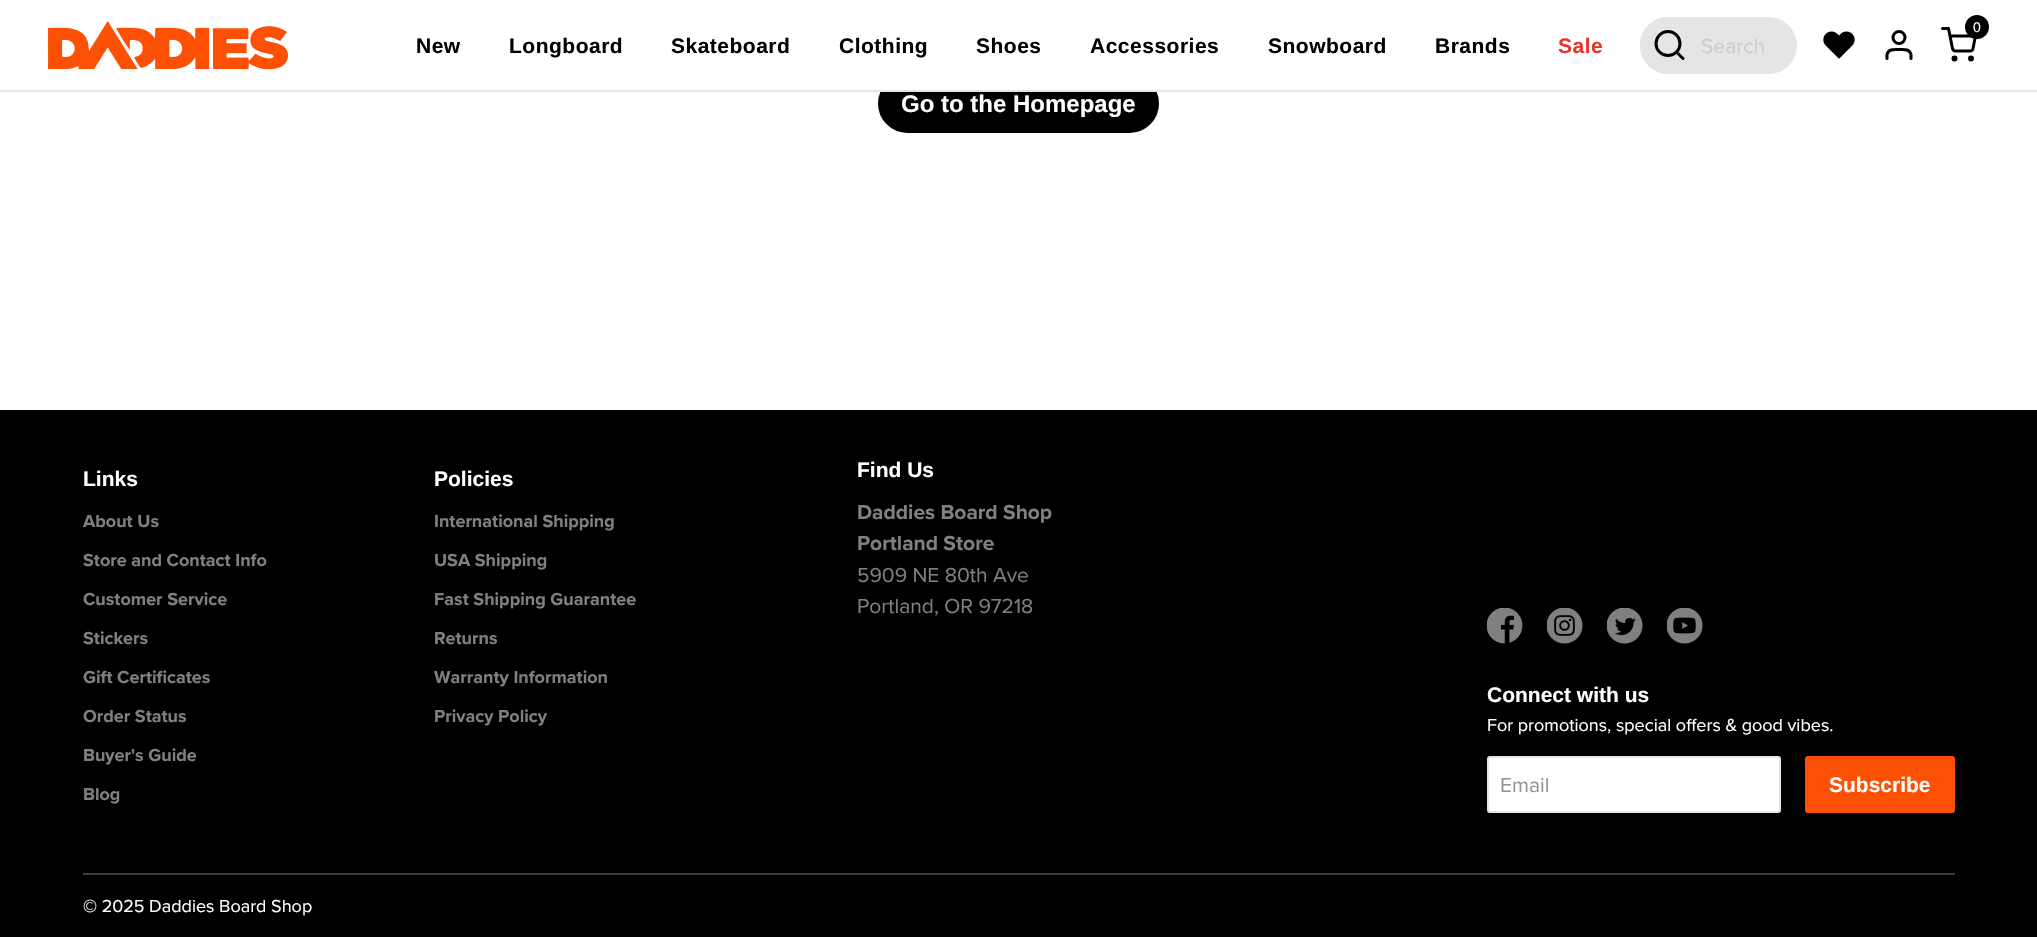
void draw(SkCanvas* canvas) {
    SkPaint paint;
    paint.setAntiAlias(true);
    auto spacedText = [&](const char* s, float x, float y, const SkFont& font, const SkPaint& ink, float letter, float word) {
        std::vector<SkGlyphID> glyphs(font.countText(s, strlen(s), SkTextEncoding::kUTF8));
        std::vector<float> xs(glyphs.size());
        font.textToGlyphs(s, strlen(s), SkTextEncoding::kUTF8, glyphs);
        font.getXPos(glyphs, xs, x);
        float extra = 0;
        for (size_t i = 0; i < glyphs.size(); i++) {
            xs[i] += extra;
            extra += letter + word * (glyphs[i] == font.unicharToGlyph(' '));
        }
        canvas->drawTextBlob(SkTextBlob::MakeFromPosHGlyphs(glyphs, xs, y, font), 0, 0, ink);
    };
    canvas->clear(0xFFFFFFFF);
    paint.setColor(0xFF000000);
    canvas->drawRoundRect(SkRect::MakeXYWH(877, 73, 283, 61), 30.5f, 30.5f, paint);
    paint.setStyle(SkPaint::kStroke_Style);
    paint.setStrokeWidth(2);
    paint.setColor(0xFFFFFFFF);
    canvas->drawRoundRect(SkRect::MakeXYWH(877, 73, 283, 61), 30.5f, 30.5f, paint);
    paint.setStyle(SkPaint::kFill_Style);
    canvas->drawRect(SkRect::MakeXYWH(879, 72, 279, 18), paint);
    paint.setColor(0xFFE5E5E5);
    canvas->drawRect(SkRect::MakeXYWH(0, 90, 2037, 2), paint);
    canvas->drawImageRect(SkImages::DeferredFromEncodedData(SkData::MakeFromFileName("img1.png")), SkRect::MakeXYWH(48, 21, 240, 48), SkSamplingOptions());
    SkFont font1(fontMgr->matchFamilyStyle("Liberation Sans", SkFontStyle::Bold()), 21);
    font1.setSubpixel(true);
    paint.setColor(0xFF000000);
    spacedText("New", 416, 53, font1, paint, 0.5f, 0);
    spacedText("Longboard", 509, 53, font1, paint, 0.5f, 0);
    spacedText("Skateboard", 671, 53, font1, paint, 0.5f, 0);
    spacedText("Clothing", 839, 53, font1, paint, 0.5f, 0);
    spacedText("Shoes", 976, 53, font1, paint, 0.5f, 0);
    spacedText("Accessories", 1090, 53, font1, paint, 0.5f, 0);
    spacedText("Snowboard", 1268, 53, font1, paint, 0.5f, 0);
    spacedText("Brands", 1435, 53, font1, paint, 0.5f, 0);
    paint.setColor(0xFFE7352B);
    spacedText("Sale", 1558, 53, font1, paint, 0.5f, 0);
    paint.setStyle(SkPaint::kStroke_Style);
    paint.setStrokeWidth(3);
    paint.setStrokeCap(SkPaint::kRound_Cap);
    paint.setStrokeJoin(SkPaint::kRound_Join);
    paint.setColor(0xFF000000);
    canvas->drawPath(SkPathBuilder().moveTo(1942.5f, 28.5f).lineTo(1948.5f, 28.5f).lineTo(1952.5f, 48.5f).cubicTo(1953, 50, 1954, 51, 1955.5f, 51).lineTo(1970, 51).cubicTo(1971.5f, 51, 1973, 50, 1973, 48.5f).lineTo(1975.5f, 36).lineTo(1950, 36).detach(), paint);
    paint.setStyle(SkPaint::kFill_Style);
    canvas->drawCircle(1977, 27, 12, paint);
    SkFont font2(fontMgr->matchFamilyStyle("Liberation Sans", SkFontStyle::Normal()), 14);
    font2.setSubpixel(true);
    paint.setColor(0xFFFFFFFF);
    canvas->drawString("0", 1973, 32, font2, paint);
    paint.setStyle(SkPaint::kStroke_Style);
    paint.setStrokeCap(SkPaint::kButt_Cap);
    paint.setStrokeJoin(SkPaint::kMiter_Join);
    paint.setColor(0xFF000000);
    canvas->drawCircle(1954.5f, 58.5f, 1.5f, paint);
    canvas->drawCircle(1971, 58.5f, 1.5f, paint);
    paint.setStyle(SkPaint::kFill_Style);
    paint.setColor(0xFFE5E5E5);
    canvas->drawRoundRect(SkRect::MakeXYWH(1641, 18, 155, 55), 27.5f, 27.5f, paint);
    paint.setStyle(SkPaint::kStroke_Style);
    paint.setStrokeWidth(2);
    canvas->drawRoundRect(SkRect::MakeXYWH(1641, 18, 155, 55), 27.5f, 27.5f, paint);
    paint.setStyle(SkPaint::kFill_Style);
    canvas->drawRoundRect(SkRect::MakeXYWH(1640, 17, 60, 57), 28.5f, 28.5f, paint);
    paint.setStyle(SkPaint::kStroke_Style);
    paint.setStrokeWidth(3);
    paint.setColor(0xFF000000);
    canvas->drawCircle(1668, 43.5f, 12, paint);
    paint.setStrokeCap(SkPaint::kRound_Cap);
    paint.setStrokeJoin(SkPaint::kRound_Join);
    canvas->drawPath(SkPathBuilder().moveTo(1683, 58.5f).lineTo(1676.5f, 52).detach(), paint);
    SkFont font3(fontMgr->matchFamilyStyle("Proxima Nova", SkFontStyle::Normal()), 21);
    font3.setSubpixel(true);
    paint.setStyle(SkPaint::kFill_Style);
    paint.setColor(0xFFCCCCCC);
    canvas->drawString("Search", 1701, 53, font3, paint);
    canvas->drawImageRect(SkImages::DeferredFromEncodedData(SkData::MakeFromFileName("img2.png")), SkRect::MakeXYWH(1823, 31, 32, 28), SkSamplingOptions());
    paint.setStyle(SkPaint::kStroke_Style);
    paint.setColor(0xFF000000);
    canvas->drawPath(SkPathBuilder().moveTo(1911, 58.5f).lineTo(1911, 54.5f).cubicTo(1909.5f, 48.5f, 1903.5f, 49.5f, 1899, 49.5f).cubicTo(1894.5f, 49.5f, 1888.5f, 48.5f, 1887, 54.5f).lineTo(1887, 58.5f).detach(), paint);
    paint.setStrokeCap(SkPaint::kButt_Cap);
    paint.setStrokeJoin(SkPaint::kMiter_Join);
    canvas->drawCircle(1899, 37.5f, 6, paint);
    SkFont font4(fontMgr->matchFamilyStyle("Liberation Sans", SkFontStyle::Bold()), 24);
    font4.setSubpixel(true);
    paint.setStyle(SkPaint::kFill_Style);
    paint.setColor(0xFFFFFFFF);
    canvas->drawString("Go to the Homepage", 901, 112, font4, paint);
    paint.setColor(0xFF000000);
    canvas->drawRect(SkRect::MakeXYWH(0, 410, 2037, 527), paint);
    paint.setColor(0xFFFFFFFF);
    canvas->drawString("Links", 83, 486, font1, paint);
    SkFont font5(fontMgr->matchFamilyStyle("Proxima Nova", SkFontStyle::Bold()), 18);
    font5.setSubpixel(true);
    paint.setColor(0xFF808080);
    canvas->drawString("About Us", 83, 527, font5, paint);
    canvas->drawString("Store and Contact Info", 83, 566, font5, paint);
    canvas->drawString("Customer Service", 83, 605, font5, paint);
    canvas->drawString("Stickers", 83, 644, font5, paint);
    canvas->drawString("Gift Certificates", 83, 683, font5, paint);
    canvas->drawString("Order Status", 83, 722, font5, paint);
    canvas->drawString("Buyer's Guide", 83, 761, font5, paint);
    canvas->drawString("Blog", 83, 800, font5, paint);
    paint.setColor(0xFFFFFFFF);
    canvas->drawString("Policies", 434, 486, font1, paint);
    paint.setColor(0xFF808080);
    canvas->drawString("International Shipping", 434, 527, font5, paint);
    canvas->drawString("USA Shipping", 434, 566, font5, paint);
    canvas->drawString("Fast Shipping Guarantee", 434, 605, font5, paint);
    canvas->drawString("Returns", 434, 644, font5, paint);
    canvas->drawString("Warranty Information", 434, 683, font5, paint);
    canvas->drawString("Privacy Policy", 434, 722, font5, paint);
    paint.setColor(0xFFFFFFFF);
    canvas->drawString("Find Us", 857, 477, font1, paint);
    SkFont font6(fontMgr->matchFamilyStyle("Proxima Nova", SkFontStyle::Bold()), 21);
    font6.setSubpixel(true);
    paint.setColor(0xFF808080);
    canvas->drawString("Daddies Board Shop", 857, 519, font6, paint);
    canvas->drawString("Portland Store", 857, 550, font6, paint);
    canvas->drawString("5909 NE 80th Ave", 857, 582, font3, paint);
    canvas->drawString("Portland, OR 97218", 857, 613, font3, paint);
    canvas->drawImageRect(SkImages::DeferredFromEncodedData(SkData::MakeFromFileName("img3.png")), SkRect::MakeXYWH(1487, 608, 36, 36), SkSamplingOptions());
    canvas->drawImageRect(SkImages::DeferredFromEncodedData(SkData::MakeFromFileName("img4.png")), SkRect::MakeXYWH(1547, 608, 36, 36), SkSamplingOptions());
    canvas->drawImageRect(SkImages::DeferredFromEncodedData(SkData::MakeFromFileName("img5.png")), SkRect::MakeXYWH(1607, 608, 36, 36), SkSamplingOptions());
    canvas->drawImageRect(SkImages::DeferredFromEncodedData(SkData::MakeFromFileName("img6.png")), SkRect::MakeXYWH(1667, 608, 36, 36), SkSamplingOptions());
    paint.setColor(0xFFFFFFFF);
    canvas->drawString("Connect with us", 1487, 702, font1, paint);
    SkFont font7(fontMgr->matchFamilyStyle("Proxima Nova", SkFontStyle::Normal()), 18);
    font7.setSubpixel(true);
    canvas->drawString("For promotions, special offers & good vibes.", 1487, 731, font7, paint);
    canvas->drawRoundRect(SkRect::MakeXYWH(1488, 757, 292, 55), 2, 2, paint);
    paint.setStyle(SkPaint::kStroke_Style);
    paint.setStrokeWidth(2);
    paint.setColor(0xFFE5E5E5);
    canvas->drawRoundRect(SkRect::MakeXYWH(1488, 757, 292, 55), 2, 2, paint);
    paint.setStyle(SkPaint::kFill_Style);
    paint.setColor(0xFF929697);
    canvas->drawString("Email", 1500, 792, font3, paint);
    paint.setColor(0xFFFC5104);
    canvas->drawRoundRect(SkRect::MakeXYWH(1805, 756, 150, 57), 3, 3, paint);
    paint.setColor(0xFFFFFFFF);
    canvas->drawString("Subscribe", 1829, 792, font1, paint);
    paint.setColor(0xFF3B3B3B);
    canvas->drawRect(SkRect::MakeXYWH(83, 873, 1872, 2), paint);
    paint.setColor(0xFFFFFFFF);
    canvas->drawString("© 2025 Daddies Board Shop", 83, 912, font7, paint);
}
